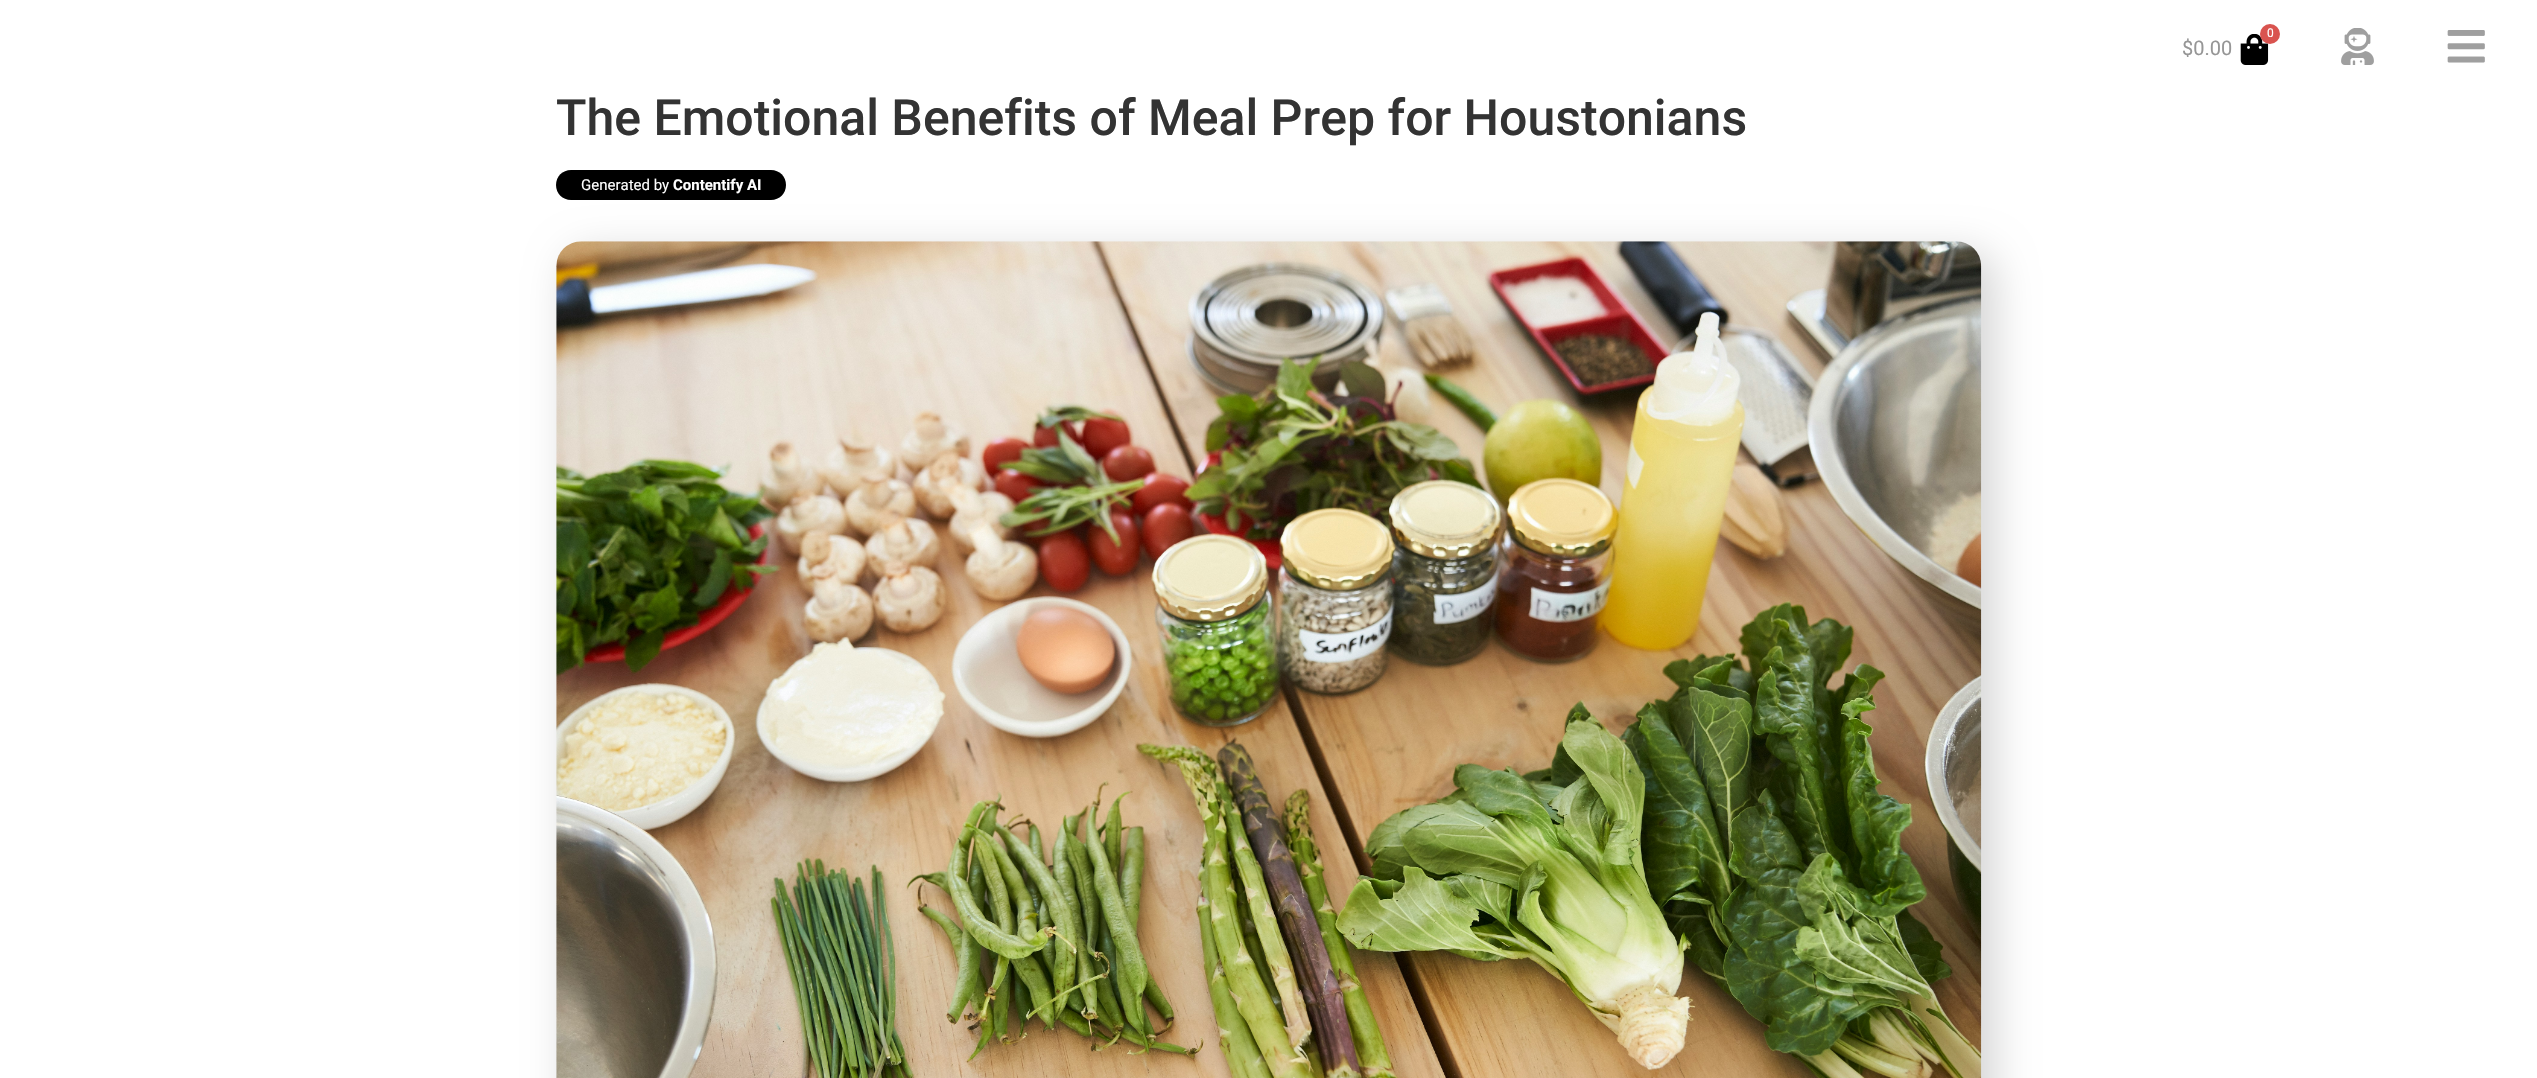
void draw(SkCanvas* canvas) {
    SkPaint paint;
    paint.setAntiAlias(true);
    canvas->clear(0xFFFFFFFF);
    canvas->drawImageRect(SkImages::DeferredFromEncodedData(SkData::MakeFromFileName("img1.png")), SkRect::MakeXYWH(2240, 34, 29, 31), SkSamplingOptions());
    paint.setColor(0xFFD9534F);
    canvas->drawCircle(2270, 34, 10, paint);
    SkFont font1(fontMgr->matchFamilyStyle("Roboto", SkFontStyle::Normal()), 12);
    font1.setSubpixel(true);
    paint.setColor(0xFFFFFFFF);
    canvas->drawString("0", 2267, 37, font1, paint);
    SkFont font2(fontMgr->matchFamilyStyle("Roboto", SkFontStyle::Normal()), 20);
    font2.setSubpixel(true);
    paint.setColor(0xFF969696);
    canvas->drawString("$0.00", 2182, 55, font2, paint);
    canvas->drawImageRect(SkImages::DeferredFromEncodedData(SkData::MakeFromFileName("img2.png")), SkRect::MakeXYWH(2341, 28, 33, 37), SkSamplingOptions());
    canvas->drawImageRect(SkImages::DeferredFromEncodedData(SkData::MakeFromFileName("img3.png")), SkRect::MakeXYWH(2447, 30, 38, 33), SkSamplingOptions());
    SkFont font3(fontMgr->matchFamilyStyle("Roboto", SkFontStyle(500, SkFontStyle::kNormal_Width, SkFontStyle::kUpright_Slant)), 50);
    font3.setSubpixel(true);
    paint.setColor(0xFF333333);
    canvas->drawString("The Emotional Benefits of Meal Prep for Houstonians", 556, 135, font3, paint);
    paint.setColor(0xFF000000);
    canvas->drawPath(SkPathBuilder().moveTo(571, 170).lineTo(674, 170).lineTo(674, 200).lineTo(571, 200).cubicTo(562.5f, 200, 556, 193.5f, 556, 185).cubicTo(556, 176.5f, 562.5f, 170, 571, 170).close().detach(), paint);
    SkFont font4(fontMgr->matchFamilyStyle("Roboto", SkFontStyle::Normal()), 15);
    font4.setSubpixel(true);
    paint.setColor(0xFFFFFFFF);
    canvas->drawString("Generated by", 581, 190, font4, paint);
    paint.setColor(0xFF000000);
    canvas->drawPath(SkPathBuilder().moveTo(674, 170).lineTo(771, 170).cubicTo(779.5f, 170, 786, 176.5f, 786, 185).cubicTo(786, 193.5f, 779.5f, 200, 771, 200).lineTo(674, 200).close().detach(), paint);
    SkFont font5(fontMgr->matchFamilyStyle("Roboto", SkFontStyle::Bold()), 15);
    font5.setSubpixel(true);
    paint.setColor(0xFFFFFFFF);
    canvas->drawString("Contentify AI", 673, 190, font5, paint);
    paint.setColor(0x29000000);
    paint.setMaskFilter(SkMaskFilter::MakeBlur(kNormal_SkBlurStyle, 19.5f));
    canvas->drawRoundRect(SkRect::MakeXYWH(566, 251, 1430, 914), 28, 28, paint);
    paint.setMaskFilter(nullptr);
    canvas->drawImageRect(SkImages::DeferredFromEncodedData(SkData::MakeFromFileName("img4.png")), SkRect::MakeXYWH(556, 241, 1426, 837), SkSamplingOptions());
}
